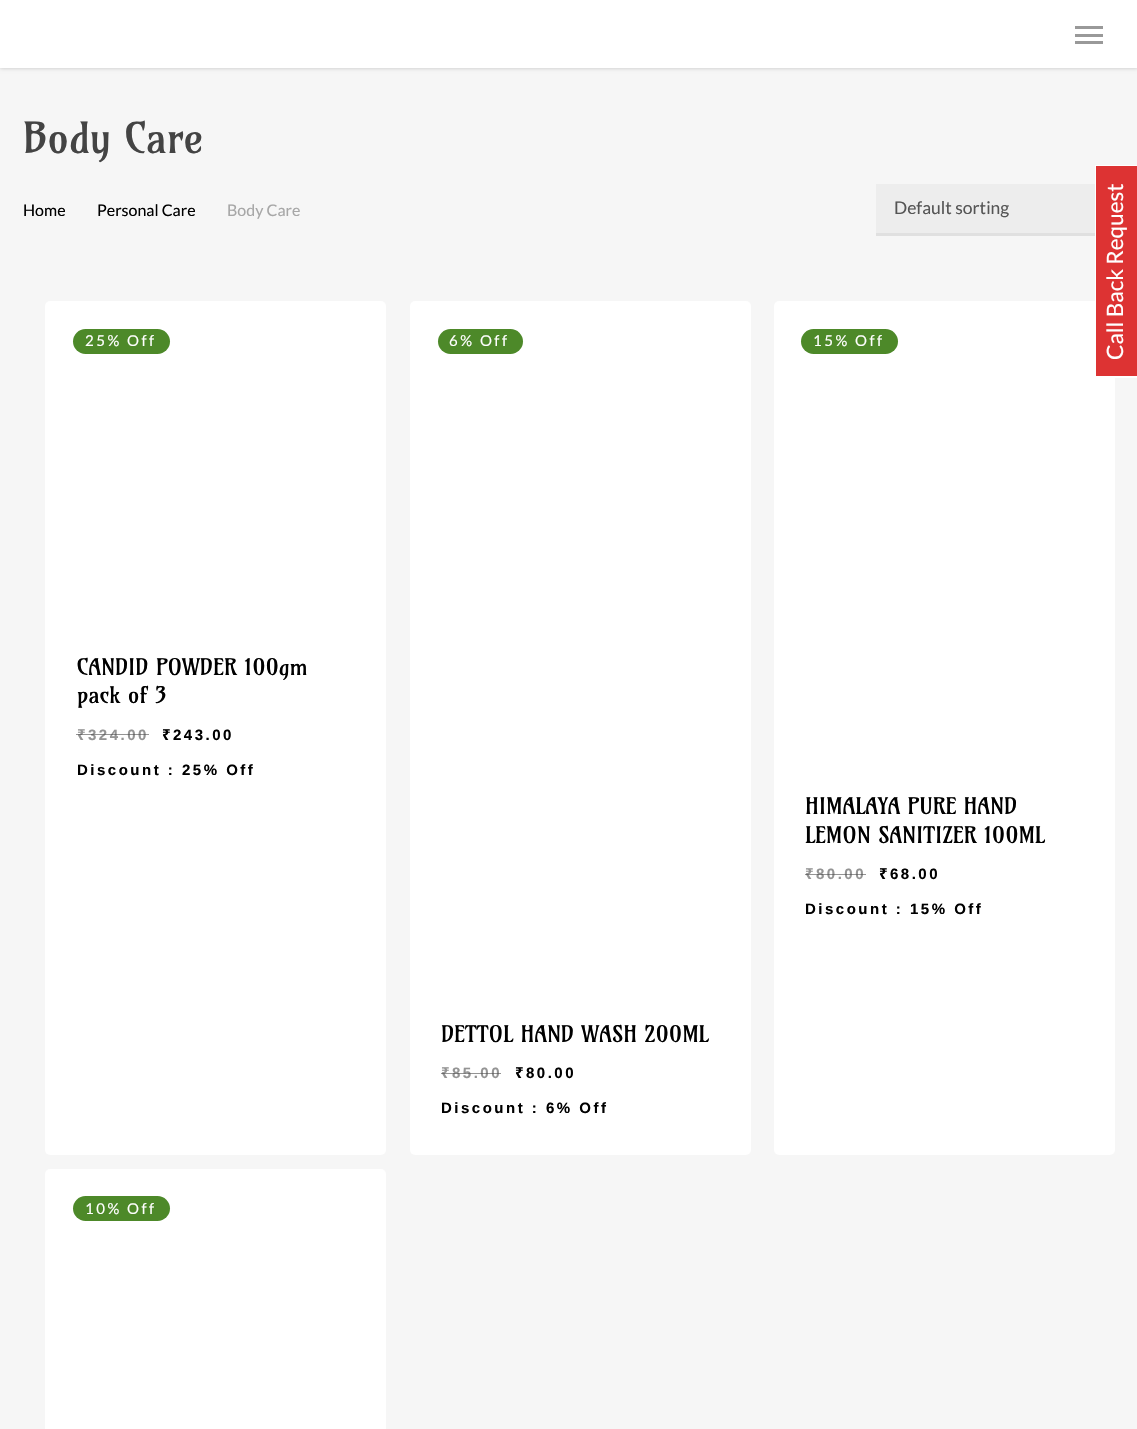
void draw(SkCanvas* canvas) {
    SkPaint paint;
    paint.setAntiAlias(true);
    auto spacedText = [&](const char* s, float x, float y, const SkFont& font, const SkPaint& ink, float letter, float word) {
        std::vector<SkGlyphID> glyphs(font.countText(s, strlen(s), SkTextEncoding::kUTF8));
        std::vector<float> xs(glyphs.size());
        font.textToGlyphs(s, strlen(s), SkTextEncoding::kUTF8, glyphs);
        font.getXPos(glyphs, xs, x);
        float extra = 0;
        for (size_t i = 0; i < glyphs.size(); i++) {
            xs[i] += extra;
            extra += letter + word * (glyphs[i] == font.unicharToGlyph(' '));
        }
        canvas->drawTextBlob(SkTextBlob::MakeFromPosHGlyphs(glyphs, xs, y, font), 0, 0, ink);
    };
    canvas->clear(0xFFF6F6F6);
    paint.setColor(0x38000000);
    paint.setMaskFilter(SkMaskFilter::MakeBlur(kNormal_SkBlurStyle, 2));
    canvas->drawRect(SkRect::MakeXYWH(0, 0, 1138, 68), paint);
    paint.setMaskFilter(nullptr);
    paint.setColor(0xFFFFFFFF);
    canvas->drawRect(SkRect::MakeXYWH(0, 0, 1137, 68), paint);
    paint.setColor(0xFF999999);
    canvas->drawRect(SkRect::MakeXYWH(1075, 26, 28, 3), paint);
    canvas->drawRect(SkRect::MakeXYWH(1075, 41, 28, 3), paint);
    canvas->drawRect(SkRect::MakeXYWH(1075, 34, 28, 3), paint);
    SkFont font1(fontMgr->matchFamilyStyle("Amarante", SkFontStyle::Normal()), 42);
    font1.setSubpixel(true);
    paint.setColor(0xFF444444);
    canvas->drawString("Body Care", 23, 153, font1, paint);
    SkFont font2(fontMgr->matchFamilyStyle("Lato", SkFontStyle::Normal()), 16);
    font2.setSubpixel(true);
    paint.setColor(0xFF000000);
    canvas->drawString("Home", 23, 216, font2, paint);
    canvas->drawString("Personal Care", 97, 216, font2, paint);
    paint.setColor(0xFFA7A7A7);
    canvas->drawString("Body Care", 227, 216, font2, paint);
    paint.setColor(0xFFEDEDED);
    canvas->drawRect(SkRect::MakeXYWH(876, 184, 219, 49), paint);
    paint.setColor(0xFFE0E0E0);
    canvas->drawRect(SkRect::MakeXYWH(876, 233, 219, 3), paint);
    SkFont font3(fontMgr->matchFamilyStyle("Lato", SkFontStyle::Normal()), 17.5f);
    font3.setSubpixel(true);
    paint.setColor(0xFF555555);
    canvas->drawString("Default sorting", 894, 214, font3, paint);
    paint.setColor(0xFFFFFFFF);
    canvas->drawRoundRect(SkRect::MakeXYWH(45, 301, 341, 854), 5, 5, paint);
    paint.setColor(0xFF4D8929);
    canvas->drawRoundRect(SkRect::MakeXYWH(73, 329, 97, 25), 12.5f, 12.5f, paint);
    SkFont font4(fontMgr->matchFamilyStyle("Lato", SkFontStyle::Normal()), 15);
    font4.setSubpixel(true);
    paint.setColor(0xFFFFFFFF);
    spacedText("25% Off", 85, 346, font4, paint, 2.5f, 0);
    SkFont font5(fontMgr->matchFamilyStyle("Amarante", SkFontStyle::Normal()), 22.5f);
    font5.setSubpixel(true);
    paint.setColor(0xFF000000);
    canvas->drawString("CANDID POWDER 100gm", 77, 675, font5, paint);
    canvas->drawString("pack of 3", 77, 703, font5, paint);
    SkFont font6(fontMgr->matchFamilyStyle("Noto Sans", SkFontStyle::Bold()), 15);
    font6.setSubpixel(true);
    paint.setColor(0xFF949494);
    spacedText("₹", 77, 740, font6, paint, 2.5f, 0);
    paint.setColor(0x994D4D4D);
    canvas->drawRect(SkRect::MakeXYWH(76, 734, 12, 1), paint);
    SkFont font7(fontMgr->matchFamilyStyle("Liberation Sans", SkFontStyle::Bold()), 15);
    font7.setSubpixel(true);
    paint.setColor(0xFF949494);
    spacedText("324.00", 88, 740, font7, paint, 2.5f, 0);
    paint.setColor(0x994D4D4D);
    canvas->drawRect(SkRect::MakeXYWH(88, 734, 61, 1), paint);
    paint.setColor(0xFF000000);
    spacedText("₹", 162, 740, font6, paint, 2.5f, 0);
    spacedText("243.00", 173, 740, font7, paint, 2.5f, 0);
    spacedText("Discount : 25% Off", 77, 775, font7, paint, 2.5f, 0);
    paint.setColor(0xFFFFFFFF);
    canvas->drawRoundRect(SkRect::MakeXYWH(410, 301, 341, 854), 5, 5, paint);
    paint.setColor(0xFF4D8929);
    canvas->drawRoundRect(SkRect::MakeXYWH(438, 329, 85, 25), 12.5f, 12.5f, paint);
    paint.setColor(0xFFFFFFFF);
    spacedText("6% Off", 449, 346, font4, paint, 2.5f, 0);
    paint.setColor(0xFF000000);
    canvas->drawString("DETTOL HAND WASH 200ML", 441, 1042, font5, paint);
    paint.setColor(0xFF949494);
    spacedText("₹", 441, 1078, font6, paint, 2.5f, 0);
    paint.setColor(0x994D4D4D);
    canvas->drawRect(SkRect::MakeXYWH(441, 1073, 10, 1), paint);
    paint.setColor(0xFF949494);
    spacedText("85.00", 452, 1078, font7, paint, 2.5f, 0);
    paint.setColor(0x994D4D4D);
    canvas->drawRect(SkRect::MakeXYWH(451, 1073, 50, 1), paint);
    paint.setColor(0xFF000000);
    spacedText("₹", 515, 1078, font6, paint, 2.5f, 0);
    spacedText("80.00", 526, 1078, font7, paint, 2.5f, 0);
    spacedText("Discount : 6% Off", 441, 1113, font7, paint, 2.5f, 0);
    paint.setColor(0xFFFFFFFF);
    canvas->drawRoundRect(SkRect::MakeXYWH(774, 301, 341, 854), 5, 5, paint);
    paint.setColor(0xFF4D8929);
    canvas->drawRoundRect(SkRect::MakeXYWH(801, 329, 97, 25), 12.5f, 12.5f, paint);
    paint.setColor(0xFFFFFFFF);
    spacedText("15% Off", 813, 346, font4, paint, 2.5f, 0);
    paint.setColor(0xFF000000);
    canvas->drawString("HIMALAYA PURE HAND", 805, 814, font5, paint);
    canvas->drawString("LEMON SANITIZER 100ML", 805, 843, font5, paint);
    paint.setColor(0xFF949494);
    spacedText("₹", 805, 879, font6, paint, 2.5f, 0);
    spacedText("80.00", 816, 879, font7, paint, 2.5f, 0);
    paint.setColor(0x994D4D4D);
    canvas->drawRect(SkRect::MakeXYWH(805, 874, 11, 1), paint);
    canvas->drawRect(SkRect::MakeXYWH(816, 874, 50, 1), paint);
    paint.setColor(0xFF000000);
    spacedText("₹", 879, 879, font6, paint, 2.5f, 0);
    spacedText("68.00", 890, 879, font7, paint, 2.5f, 0);
    spacedText("Discount : 15% Off", 805, 914, font7, paint, 2.5f, 0);
    paint.setColor(0xFFFFFFFF);
    canvas->drawRoundRect(SkRect::MakeXYWH(45, 1169, 341, 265), 5, 5, paint);
    paint.setColor(0xFF4D8929);
    canvas->drawRoundRect(SkRect::MakeXYWH(73, 1196, 97, 25), 12.5f, 12.5f, paint);
    paint.setColor(0xFFFFFFFF);
    spacedText("10% Off", 85, 1214, font4, paint, 2.5f, 0);
    paint.setColor(0xFFDD3333);
    canvas->drawRect(SkRect::MakeXYWH(1096, 166, 41, 210), paint);
    paint.setColor(0xFFFFFFFF);
    canvas->drawRect(SkRect::MakeXYWH(1095, 165, 1, 136), paint);
    canvas->drawRect(SkRect::MakeXYWH(1095, 165, 42, 1), paint);
    canvas->drawRect(SkRect::MakeXYWH(1115, 376, 22, 2), paint);
    SkFont font8(fontMgr->matchFamilyStyle("Lato", SkFontStyle::Normal()), 22.5f);
    font8.setSubpixel(true);
    canvas->save();
    canvas->rotate(-90, 1123, 360);
    canvas->drawString("Call Back Request", 1123, 360, font8, paint);
    canvas->restore();
}
